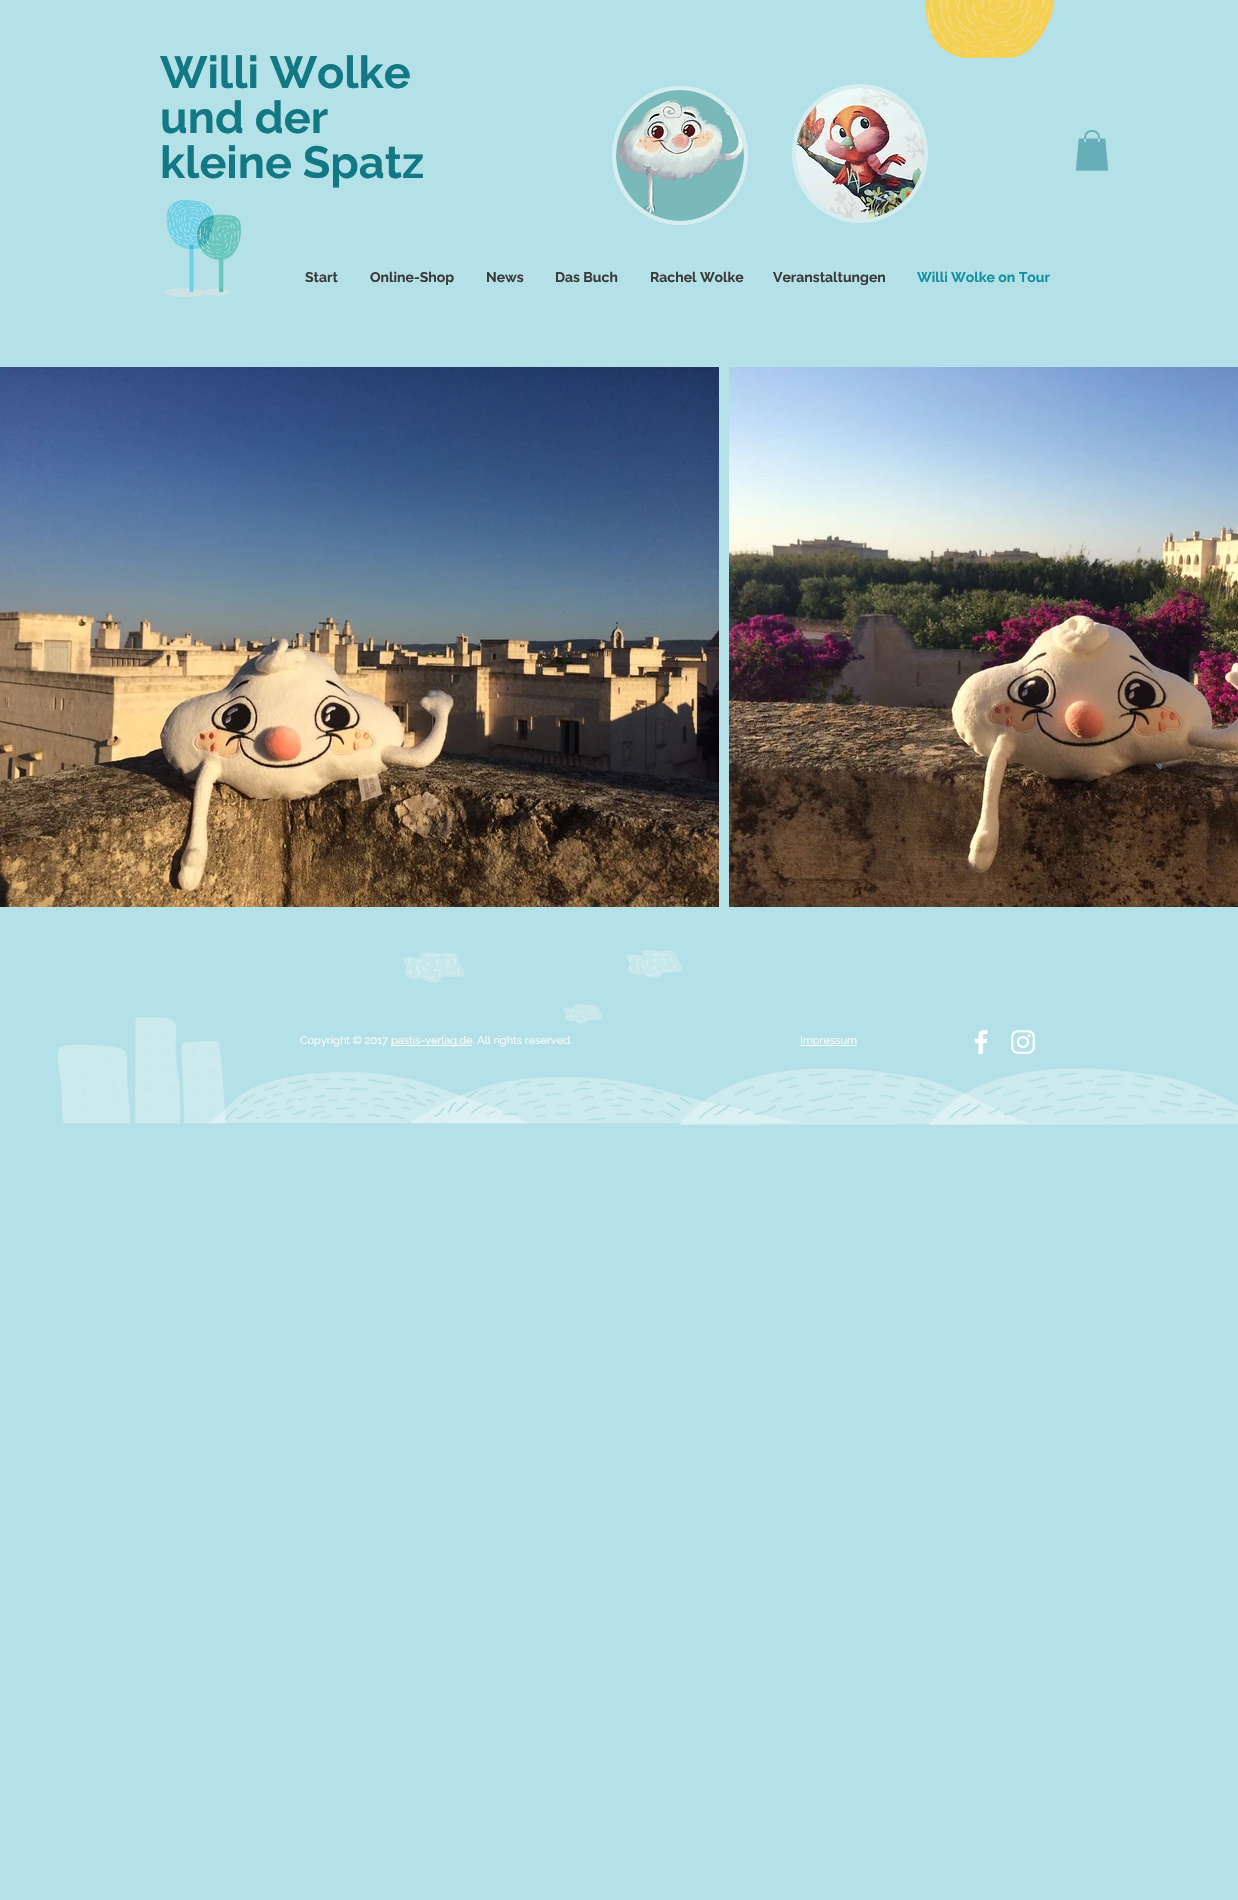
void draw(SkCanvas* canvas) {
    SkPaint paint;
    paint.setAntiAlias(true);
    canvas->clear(0xFFB4E1E7);
    canvas->drawImageRect(SkImages::DeferredFromEncodedData(SkData::MakeFromFileName("img1.png")), SkRect::MakeXYWH(925, 0, 129, 58), SkSamplingOptions());
    SkFont font1(fontMgr->matchFamilyStyle("Raleway", SkFontStyle::Bold()), 45);
    font1.setSubpixel(true);
    paint.setColor(0xFF127984);
    canvas->drawString("Willi Wolke", 160, 88, font1, paint);
    canvas->drawString("und der", 160, 133, font1, paint);
    canvas->drawString("kleine Spatz", 160, 178, font1, paint);
    paint.setColor(0xFFC7E8ED);
    canvas->drawOval(SkRect::MakeXYWH(612, 86, 136, 139), paint);
    paint.setStyle(SkPaint::kStroke_Style);
    paint.setStrokeWidth(4);
    paint.setColor(0x40FFFDFD);
    canvas->drawPath(SkPathBuilder().moveTo(680, 88).cubicTo(716.5f, 88, 746, 118, 746, 155.5f).cubicTo(746, 193, 716.5f, 223, 680, 223).cubicTo(643.5f, 223, 614, 193, 614, 155.5f).cubicTo(614, 118, 643.5f, 88, 680, 88).close().detach(), paint);
    canvas->drawImageRect(SkImages::DeferredFromEncodedData(SkData::MakeFromFileName("img2.png")), SkRect::MakeXYWH(616, 90, 128, 131), SkSamplingOptions());
    paint.setStyle(SkPaint::kFill_Style);
    paint.setColor(0xFFC7E8ED);
    canvas->drawOval(SkRect::MakeXYWH(792, 84, 136, 139), paint);
    paint.setStyle(SkPaint::kStroke_Style);
    paint.setColor(0x40FFFDFD);
    canvas->drawPath(SkPathBuilder().moveTo(860, 86).cubicTo(896.5f, 86, 926, 116, 926, 153.5f).cubicTo(926, 191, 896.5f, 221, 860, 221).cubicTo(823.5f, 221, 794, 191, 794, 153.5f).cubicTo(794, 116, 823.5f, 86, 860, 86).close().detach(), paint);
    canvas->drawImageRect(SkImages::DeferredFromEncodedData(SkData::MakeFromFileName("img3.png")), SkRect::MakeXYWH(796, 88, 128, 131), SkSamplingOptions());
    canvas->drawImageRect(SkImages::DeferredFromEncodedData(SkData::MakeFromFileName("img4.png")), SkRect::MakeXYWH(1075, 130, 34, 41), SkSamplingOptions());
    canvas->drawImageRect(SkImages::DeferredFromEncodedData(SkData::MakeFromFileName("img5.png")), SkRect::MakeXYWH(165, 200, 76, 97), SkSamplingOptions());
    SkFont font2(fontMgr->matchFamilyStyle("Raleway", SkFontStyle::Bold()), 14);
    font2.setSubpixel(true);
    paint.setStyle(SkPaint::kFill_Style);
    paint.setColor(0xFF3B3A3A);
    canvas->drawString("Start", 305, 282, font2, paint);
    canvas->drawString("Online-Shop", 370, 282, font2, paint);
    canvas->drawString("News", 486, 282, font2, paint);
    canvas->drawString("Das Buch", 555, 282, font2, paint);
    canvas->drawString("Rachel Wolke", 650, 282, font2, paint);
    canvas->drawString("Veranstaltungen", 773, 282, font2, paint);
    paint.setColor(0xFF1390A0);
    canvas->drawString("Willi Wolke on Tour", 917, 282, font2, paint);
    canvas->drawImageRect(SkImages::DeferredFromEncodedData(SkData::MakeFromFileName("img6.png")), SkRect::MakeXYWH(0, 367, 719, 540), SkSamplingOptions());
    canvas->drawImageRect(SkImages::DeferredFromEncodedData(SkData::MakeFromFileName("img7.png")), SkRect::MakeXYWH(729, 367, 509, 540), SkSamplingOptions());
    canvas->drawImageRect(SkImages::DeferredFromEncodedData(SkData::MakeFromFileName("img8.png")), SkRect::MakeXYWH(57, 950, 1181, 175), SkSamplingOptions());
    SkFont font3(fontMgr->matchFamilyStyle("Raleway", SkFontStyle::Normal()), 11);
    font3.setSubpixel(true);
    paint.setColor(0xFFFFFDFD);
    canvas->drawString("Copyright © 2017", 300, 1044, font3, paint);
    canvas->drawRect(SkRect::MakeXYWH(391, 1045, 81, 1), paint);
    canvas->drawString("pastis-verlag.de. All rights reserved.", 391, 1044, font3, paint);
    canvas->drawRect(SkRect::MakeXYWH(800, 1045, 57, 1), paint);
    canvas->drawString("Impressum", 800, 1044, font3, paint);
    canvas->drawImageRect(SkImages::DeferredFromEncodedData(SkData::MakeFromFileName("img9.png")), SkRect::MakeXYWH(974, 1030, 14, 25), SkSamplingOptions());
    canvas->drawImageRect(SkImages::DeferredFromEncodedData(SkData::MakeFromFileName("img10.png")), SkRect::MakeXYWH(1011, 1030, 24, 24), SkSamplingOptions());
}
